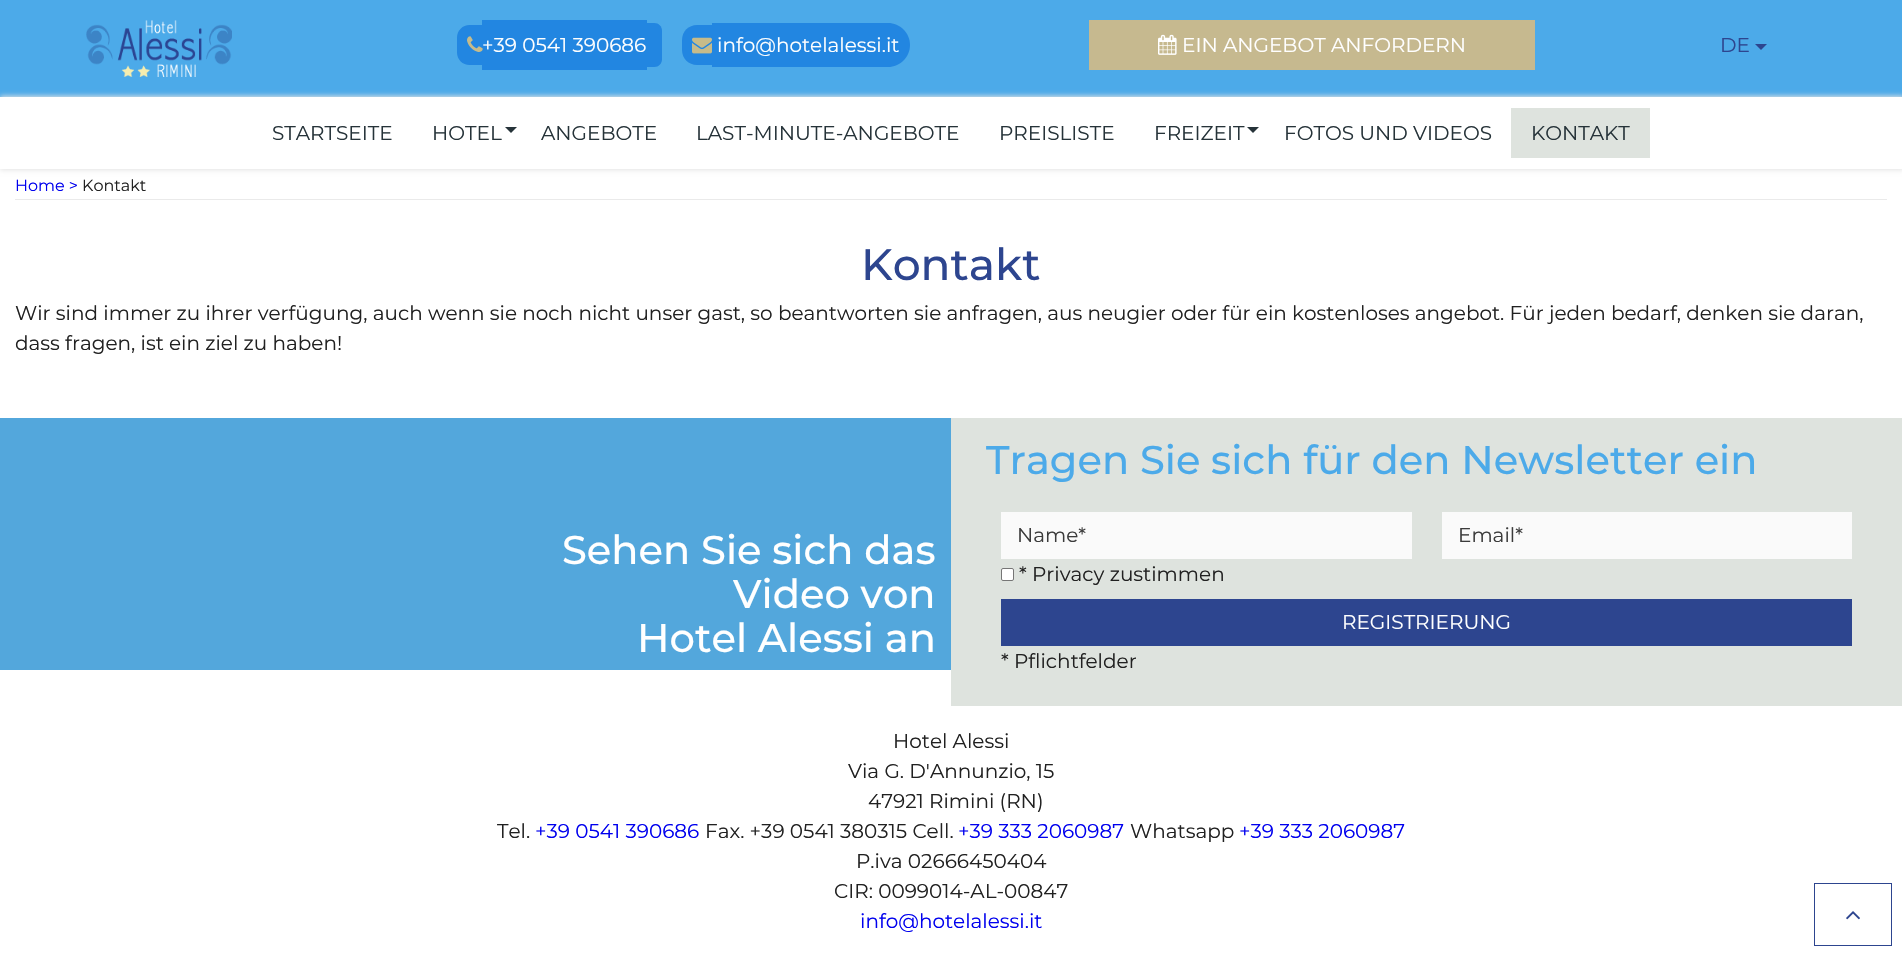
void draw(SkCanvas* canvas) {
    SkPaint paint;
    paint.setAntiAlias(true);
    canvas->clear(0xFFFFFFFF);
    paint.setColor(0xFF4CAAE9);
    canvas->drawRect(SkRect::MakeXYWH(0, 0, 1902, 97), paint);
    canvas->drawImageRect(SkImages::DeferredFromEncodedData(SkData::MakeFromFileName("img1.png")), SkRect::MakeXYWH(86, 20, 146, 57), SkSamplingOptions());
    paint.setColor(0xFF2286E1);
    canvas->drawPath(SkPathBuilder().moveTo(469.5f, 25).lineTo(482, 25).lineTo(482, 65).lineTo(469.5f, 65).cubicTo(462.5f, 65, 457, 59.5f, 457, 52.5f).lineTo(457, 37.5f).cubicTo(457, 30.5f, 462.5f, 25, 469.5f, 25).close().detach(), paint);
    canvas->drawRect(SkRect::MakeXYWH(482, 20, 165, 50), paint);
    canvas->drawPath(SkPathBuilder().moveTo(647, 23).lineTo(654.5f, 23).cubicTo(658.5f, 23, 662, 26.5f, 662, 30.5f).lineTo(662, 59.5f).cubicTo(662, 63.5f, 658.5f, 67, 654.5f, 67).lineTo(647, 67).close().detach(), paint);
    canvas->drawImageRect(SkImages::DeferredFromEncodedData(SkData::MakeFromFileName("img2.png")), SkRect::MakeXYWH(467, 36, 16, 16), SkSamplingOptions());
    SkFont font1(fontMgr->matchFamilyStyle("Montserrat", SkFontStyle::Normal()), 20);
    font1.setSubpixel(true);
    paint.setColor(0xFFFFFFFF);
    canvas->drawString("+39 0541 390686", 482, 52, font1, paint);
    paint.setColor(0xFF2286E1);
    canvas->drawPath(SkPathBuilder().moveTo(697, 25).lineTo(712, 25).lineTo(712, 65).lineTo(697, 65).cubicTo(688.5f, 65, 682, 58.5f, 682, 50).lineTo(682, 40).cubicTo(682, 31.5f, 688.5f, 25, 697, 25).close().detach(), paint);
    canvas->drawRect(SkRect::MakeXYWH(712, 23, 5, 44), paint);
    canvas->drawPath(SkPathBuilder().moveTo(717, 23).lineTo(888, 23).cubicTo(900, 23, 910, 33, 910, 45).cubicTo(910, 57, 900, 67, 888, 67).lineTo(717, 67).close().detach(), paint);
    canvas->drawImageRect(SkImages::DeferredFromEncodedData(SkData::MakeFromFileName("img3.png")), SkRect::MakeXYWH(692, 37, 20, 17), SkSamplingOptions());
    paint.setColor(0xFFFFFFFF);
    canvas->drawString("info@hotelalessi.it", 717, 52, font1, paint);
    paint.setColor(0xFFC6B98F);
    canvas->drawRect(SkRect::MakeXYWH(1089, 20, 446, 50), paint);
    canvas->drawImageRect(SkImages::DeferredFromEncodedData(SkData::MakeFromFileName("img4.png")), SkRect::MakeXYWH(1158, 34, 19, 21), SkSamplingOptions());
    paint.setColor(0xFFFFFFFF);
    canvas->drawString("EIN ANGEBOT ANFORDERN", 1182, 52, font1, paint);
    paint.setColor(0xFF2D458F);
    canvas->drawString("DE", 1720, 52, font1, paint);
    canvas->drawPath(SkPathBuilder().moveTo(1755, 44).lineTo(1767, 44).lineTo(1761, 50).close().detach(), paint);
    canvas->save();
    canvas->clipPath(SkPathBuilder(SkPathFillType::kEvenOdd).moveTo(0, 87).lineTo(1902, 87).lineTo(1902, 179).lineTo(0, 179).close().moveTo(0, 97).lineTo(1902, 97).lineTo(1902, 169).lineTo(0, 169).close().detach(), true);
    paint.setColor(0xFFE3E3E3);
    paint.setMaskFilter(SkMaskFilter::MakeBlur(kNormal_SkBlurStyle, 2.5f));
    canvas->drawRect(SkRect::MakeXYWH(0, 96, 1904, 74), paint);
    paint.setMaskFilter(nullptr);
    canvas->restore();
    paint.setColor(0xFF263339);
    canvas->drawString("STARTSEITE", 272, 140, font1, paint);
    canvas->drawString("HOTEL", 432, 140, font1, paint);
    canvas->drawPath(SkPathBuilder().moveTo(505, 127).lineTo(517, 127).lineTo(511, 133).close().detach(), paint);
    canvas->drawString("ANGEBOTE", 541, 140, font1, paint);
    canvas->drawString("LAST-MINUTE-ANGEBOTE", 696, 140, font1, paint);
    canvas->drawString("PREISLISTE", 999, 140, font1, paint);
    canvas->drawString("FREIZEIT", 1154, 140, font1, paint);
    canvas->drawPath(SkPathBuilder().moveTo(1247, 127).lineTo(1259, 127).lineTo(1253, 133).close().detach(), paint);
    canvas->drawString("FOTOS UND VIDEOS", 1284, 140, font1, paint);
    paint.setColor(0xFFDEE3DE);
    canvas->drawRect(SkRect::MakeXYWH(1511, 108, 139, 50), paint);
    paint.setColor(0xFF263339);
    canvas->drawString("KONTAKT", 1531, 140, font1, paint);
    paint.setColor(0xFFEAEAEA);
    canvas->drawRect(SkRect::MakeXYWH(15, 199, 1872, 1), paint);
    SkFont font2(fontMgr->matchFamilyStyle("Montserrat", SkFontStyle::Normal()), 16);
    font2.setSubpixel(true);
    paint.setColor(0xFF0000EE);
    canvas->drawString("Home >", 15, 191, font2, paint);
    paint.setColor(0xFF212121);
    canvas->drawString("Kontakt", 82, 191, font2, paint);
    SkFont font3(fontMgr->matchFamilyStyle("Montserrat", SkFontStyle(500, SkFontStyle::kNormal_Width, SkFontStyle::kUpright_Slant)), 44);
    font3.setSubpixel(true);
    paint.setColor(0xFF2D458F);
    canvas->drawString("Kontakt", 861, 280, font3, paint);
    paint.setColor(0xFF212121);
    canvas->drawString("Wir sind immer zu ihrer verfügung, auch wenn sie noch nicht unser gast, so beantworten sie anfragen, aus neugier oder für ein kostenloses angebot. Für jeden bedarf, denken sie daran,", 15, 320, font1, paint);
    canvas->drawString("dass fragen, ist ein ziel zu haben!", 15, 350, font1, paint);
    paint.setColor(0xFF53A7DC);
    canvas->drawRect(SkRect::MakeXYWH(0, 418, 951, 252), paint);
    SkFont font4(fontMgr->matchFamilyStyle("Montserrat", SkFontStyle(500, SkFontStyle::kNormal_Width, SkFontStyle::kUpright_Slant)), 40);
    font4.setSubpixel(true);
    paint.setColor(0xFFFFFFFF);
    canvas->drawString("Sehen Sie sich das", 562, 564, font4, paint);
    canvas->drawString("Video von", 733, 608, font4, paint);
    canvas->drawString("Hotel Alessi an", 637, 652, font4, paint);
    paint.setColor(0xFFDEE3DE);
    canvas->drawRect(SkRect::MakeXYWH(951, 418, 951, 288), paint);
    paint.setColor(0xFF4CAAE9);
    canvas->drawString("Tragen Sie sich für den Newsletter ein", 986, 474, font4, paint);
    paint.setColor(0xFFFAFAFA);
    canvas->drawRect(SkRect::MakeXYWH(1001.5f, 512.5f, 410, 46), paint);
    paint.setStyle(SkPaint::kStroke_Style);
    paint.setStrokeWidth(1);
    canvas->drawRect(SkRect::MakeXYWH(1001.5f, 512.5f, 410, 46), paint);
    paint.setStyle(SkPaint::kFill_Style);
    paint.setColor(0xFF3B3B3B);
    canvas->drawString("Name*", 1017, 542, font1, paint);
    paint.setColor(0xFFFAFAFA);
    canvas->drawRect(SkRect::MakeXYWH(1442.5f, 512.5f, 409, 46), paint);
    paint.setStyle(SkPaint::kStroke_Style);
    canvas->drawRect(SkRect::MakeXYWH(1442.5f, 512.5f, 409, 46), paint);
    paint.setStyle(SkPaint::kFill_Style);
    paint.setColor(0xFF3B3B3B);
    canvas->drawString("Email*", 1458, 542, font1, paint);
    paint.setColor(0xFFFFFFFF);
    canvas->drawRoundRect(SkRect::MakeXYWH(1001.5f, 568.5f, 12, 12), 1.5f, 1.5f, paint);
    paint.setStyle(SkPaint::kStroke_Style);
    paint.setColor(0xFF767676);
    canvas->drawRoundRect(SkRect::MakeXYWH(1001.5f, 568.5f, 12, 12), 1.5f, 1.5f, paint);
    paint.setStyle(SkPaint::kFill_Style);
    paint.setColor(0xFF212121);
    canvas->drawString("* Privacy zustimmen", 1019, 581, font1, paint);
    paint.setColor(0xFF2D458F);
    canvas->drawRect(SkRect::MakeXYWH(1001, 599, 851, 47), paint);
    paint.setColor(0xFFFFFFFF);
    canvas->drawString("REGISTRIERUNG", 1342, 629, font1, paint);
    paint.setColor(0xFF212121);
    canvas->drawString("* Pflichtfelder", 1001, 668, font1, paint);
    canvas->drawString("Hotel Alessi", 893, 748, font1, paint);
    canvas->drawString("Via G. D'Annunzio, 15", 848, 778, font1, paint);
    canvas->drawString("47921 Rimini (RN)", 868, 808, font1, paint);
    canvas->drawString("Tel.", 497, 838, font1, paint);
    paint.setColor(0xFF0000EE);
    canvas->drawString("+39 0541 390686", 535, 838, font1, paint);
    paint.setColor(0xFF212121);
    canvas->drawString("Fax. +39 0541 380315 Cell.", 705, 838, font1, paint);
    paint.setColor(0xFF0000EE);
    canvas->drawString("+39 333 2060987", 958, 838, font1, paint);
    paint.setColor(0xFF212121);
    canvas->drawString("Whatsapp", 1130, 838, font1, paint);
    paint.setColor(0xFF0000EE);
    canvas->drawString("+39 333 2060987", 1239, 838, font1, paint);
    paint.setColor(0xFF212121);
    canvas->drawString("P.iva 02666450404", 856, 868, font1, paint);
    canvas->drawString("CIR: 0099014-AL-00847", 834, 898, font1, paint);
    paint.setColor(0xFF0000EE);
    canvas->drawString("info@hotelalessi.it", 860, 928, font1, paint);
    paint.setStyle(SkPaint::kStroke_Style);
    paint.setColor(0xFF2D458F);
    canvas->drawRect(SkRect::MakeXYWH(1814.5f, 883.5f, 77, 62), paint);
    canvas->drawImageRect(SkImages::DeferredFromEncodedData(SkData::MakeFromFileName("img5.png")), SkRect::MakeXYWH(1846, 911, 14, 9), SkSamplingOptions());
}
